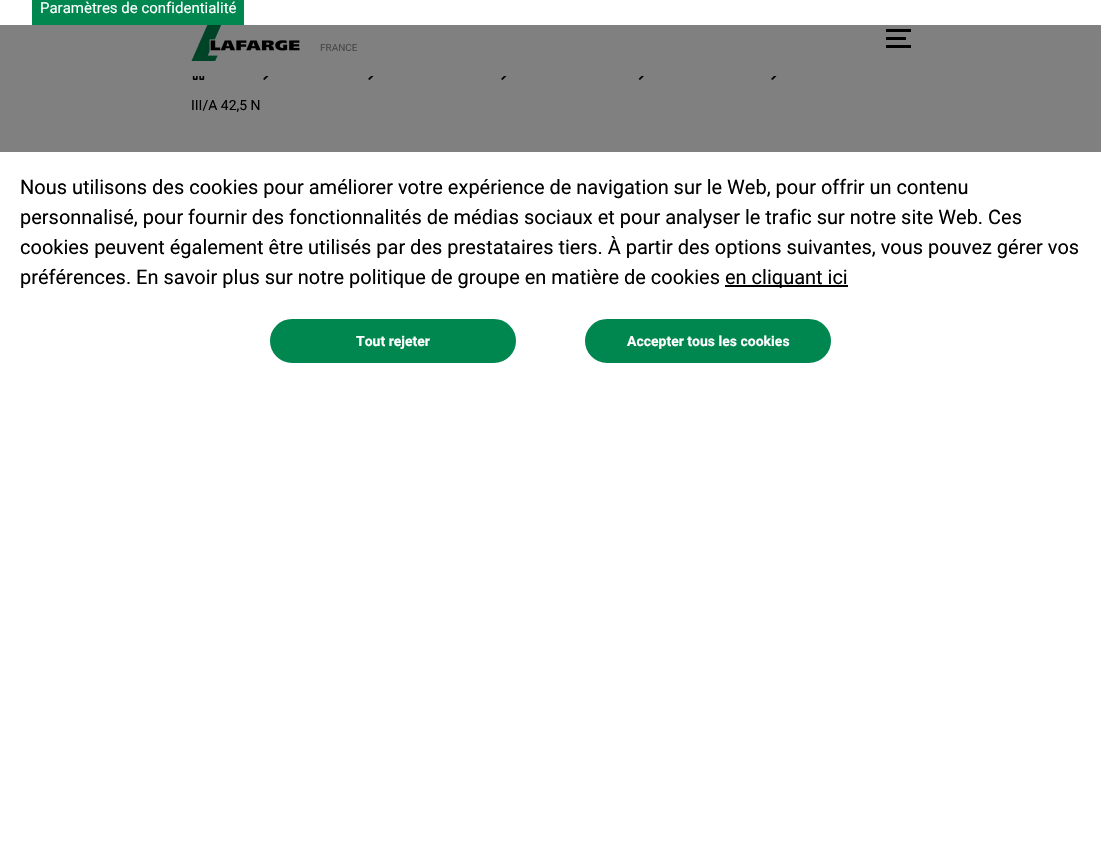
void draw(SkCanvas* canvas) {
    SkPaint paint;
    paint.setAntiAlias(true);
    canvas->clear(0xFF808080);
    paint.setColor(0xFFFFFFFF);
    canvas->drawRect(SkRect::MakeXYWH(0, 0, 1101, 25), paint);
    paint.setColor(0xFF008750);
    canvas->drawRect(SkRect::MakeXYWH(32, 0, 212, 25), paint);
    SkFont font1(fontMgr->matchFamilyStyle("Roboto", SkFontStyle::Normal()), 15);
    font1.setSubpixel(true);
    paint.setColor(0xFFFFFFFF);
    canvas->drawString("Paramètres de confidentialité", 40, 13, font1, paint);
    canvas->drawRect(SkRect::MakeXYWH(0, 152, 1101, 699), paint);
    SkFont font2(fontMgr->matchFamilyStyle("Roboto", SkFontStyle::Normal()), 20);
    font2.setSubpixel(true);
    paint.setColor(0xFF000000);
    canvas->drawString("Nous utilisons des cookies pour améliorer votre expérience de navigation sur le Web, pour offrir un contenu", 20, 194, font2, paint);
    canvas->drawString("personnalisé, pour fournir des fonctionnalités de médias sociaux et pour analyser le trafic sur notre site Web. Ces", 20, 224, font2, paint);
    canvas->drawString("cookies peuvent également être utilisés par des prestataires tiers. À partir des options suivantes, vous pouvez gérer vos", 20, 254, font2, paint);
    canvas->drawString("préférences. En savoir plus sur notre politique de groupe en matière de cookies", 20, 284, font2, paint);
    canvas->drawRect(SkRect::MakeXYWH(725, 285, 123, 2), paint);
    canvas->drawString("en cliquant ici", 725, 284, font2, paint);
    paint.setColor(0xFF008750);
    canvas->drawRoundRect(SkRect::MakeXYWH(269, 318, 248, 46), 23, 23, paint);
    paint.setStyle(SkPaint::kStroke_Style);
    paint.setStrokeWidth(2);
    paint.setColor(0xFFFFFFFF);
    canvas->drawRoundRect(SkRect::MakeXYWH(269, 318, 248, 46), 23, 23, paint);
    SkFont font3(fontMgr->matchFamilyStyle("Roboto", SkFontStyle::Bold()), 14);
    font3.setSubpixel(true);
    paint.setStyle(SkPaint::kFill_Style);
    canvas->drawString("Tout rejeter", 356, 346, font3, paint);
    paint.setColor(0xFF008750);
    canvas->drawRoundRect(SkRect::MakeXYWH(584, 318, 248, 46), 23, 23, paint);
    paint.setStyle(SkPaint::kStroke_Style);
    paint.setColor(0xFFFFFFFF);
    canvas->drawRoundRect(SkRect::MakeXYWH(584, 318, 248, 46), 23, 23, paint);
    paint.setStyle(SkPaint::kFill_Style);
    canvas->drawString("Accepter tous les cookies", 627, 346, font3, paint);
    paint.setColor(0xFF000000);
    canvas->drawPath(SkPathBuilder().moveTo(264.5f, 80).lineTo(263, 79).lineTo(268, 74).lineTo(269.5f, 75).close().detach(), paint);
    canvas->drawPath(SkPathBuilder().moveTo(369.5f, 80).lineTo(368, 79).lineTo(373, 74).lineTo(374.5f, 75).close().detach(), paint);
    canvas->drawPath(SkPathBuilder().moveTo(502.5f, 80).lineTo(501, 79).lineTo(506, 74).lineTo(507.5f, 75).close().detach(), paint);
    canvas->drawPath(SkPathBuilder().moveTo(640, 80).lineTo(638.5f, 79).lineTo(643.5f, 74).lineTo(645, 75).close().detach(), paint);
    canvas->drawPath(SkPathBuilder().moveTo(772.5f, 80).lineTo(771, 79).lineTo(776, 74).lineTo(777.5f, 75).close().detach(), paint);
    paint.setColor(0xFF808080);
    canvas->drawRect(SkRect::MakeXYWH(266, 74, 512, 2), paint);
    canvas->drawImageRect(SkImages::DeferredFromEncodedData(SkData::MakeFromFileName("img1.png")), SkRect::MakeXYWH(191, 25, 109, 36), SkSamplingOptions());
    SkFont font4(fontMgr->matchFamilyStyle("Roboto", SkFontStyle::Normal()), 10);
    font4.setSubpixel(true);
    paint.setColor(0xFF464747);
    canvas->drawString("FRANCE", 320, 51, font4, paint);
    paint.setColor(0xFF000000);
    canvas->drawRect(SkRect::MakeXYWH(886, 29, 25, 3), paint);
    canvas->drawRect(SkRect::MakeXYWH(886, 37, 20, 3), paint);
    canvas->drawRect(SkRect::MakeXYWH(886, 45, 25, 3), paint);
    canvas->drawImageRect(SkImages::DeferredFromEncodedData(SkData::MakeFromFileName("img2.png")), SkRect::MakeXYWH(192, 76, 13, 4), SkSamplingOptions());
    SkFont font5(fontMgr->matchFamilyStyle("Roboto", SkFontStyle::Normal()), 14);
    font5.setSubpixel(true);
    canvas->drawString("III/A 42,5 N", 191, 110, font5, paint);
}
